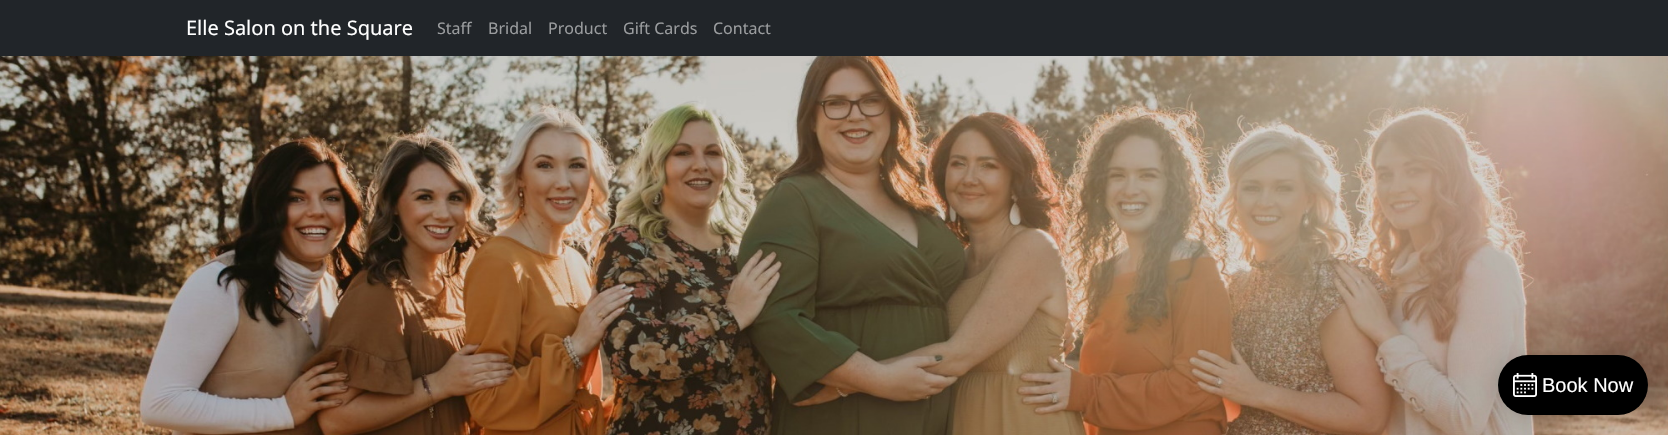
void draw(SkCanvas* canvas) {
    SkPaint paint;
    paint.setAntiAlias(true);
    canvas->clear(0xFFFFFFFF);
    paint.setColor(0xFF212529);
    canvas->drawRect(SkRect::MakeXYWH(0, 0, 1668, 56), paint);
    SkFont font1(fontMgr->matchFamilyStyle("Noto Sans", SkFontStyle::Normal()), 20);
    font1.setSubpixel(true);
    paint.setColor(0xFFFFFFFF);
    canvas->drawString("Elle Salon on the Square", 186, 35, font1, paint);
    SkFont font2(fontMgr->matchFamilyStyle("Noto Sans", SkFontStyle::Normal()), 16);
    font2.setSubpixel(true);
    paint.setColor(0xFF9B9D9F);
    canvas->drawString("Staff", 437, 34, font2, paint);
    canvas->drawString("Bridal", 488, 34, font2, paint);
    canvas->drawString("Product", 548, 34, font2, paint);
    canvas->drawString("Gift Cards", 623, 34, font2, paint);
    canvas->drawString("Contact", 713, 34, font2, paint);
    canvas->drawImageRect(SkImages::DeferredFromEncodedData(SkData::MakeFromFileName("img1.png")), SkRect::MakeXYWH(0, 56, 1668, 379), SkSamplingOptions());
    paint.setColor(0x29000000);
    paint.setMaskFilter(SkMaskFilter::MakeBlur(kNormal_SkBlurStyle, 16));
    canvas->drawRoundRect(SkRect::MakeXYWH(1498, 357, 150, 60), 30, 30, paint);
    paint.setMaskFilter(nullptr);
    paint.setColor(0x0F000000);
    paint.setMaskFilter(SkMaskFilter::MakeBlur(kNormal_SkBlurStyle, 3));
    canvas->drawRoundRect(SkRect::MakeXYWH(1498, 356, 150, 60), 30, 30, paint);
    paint.setMaskFilter(nullptr);
    paint.setColor(0xFF000000);
    canvas->drawRoundRect(SkRect::MakeXYWH(1498, 355, 150, 60), 30, 30, paint);
    canvas->drawImageRect(SkImages::DeferredFromEncodedData(SkData::MakeFromFileName("img2.png")), SkRect::MakeXYWH(1513, 373, 24, 24), SkSamplingOptions());
    SkFont font3(fontMgr->matchFamilyStyle("Liberation Sans", SkFontStyle::Normal()), 20);
    font3.setSubpixel(true);
    paint.setColor(0xFFFFFFFF);
    canvas->drawString("Book Now", 1542, 392, font3, paint);
}
